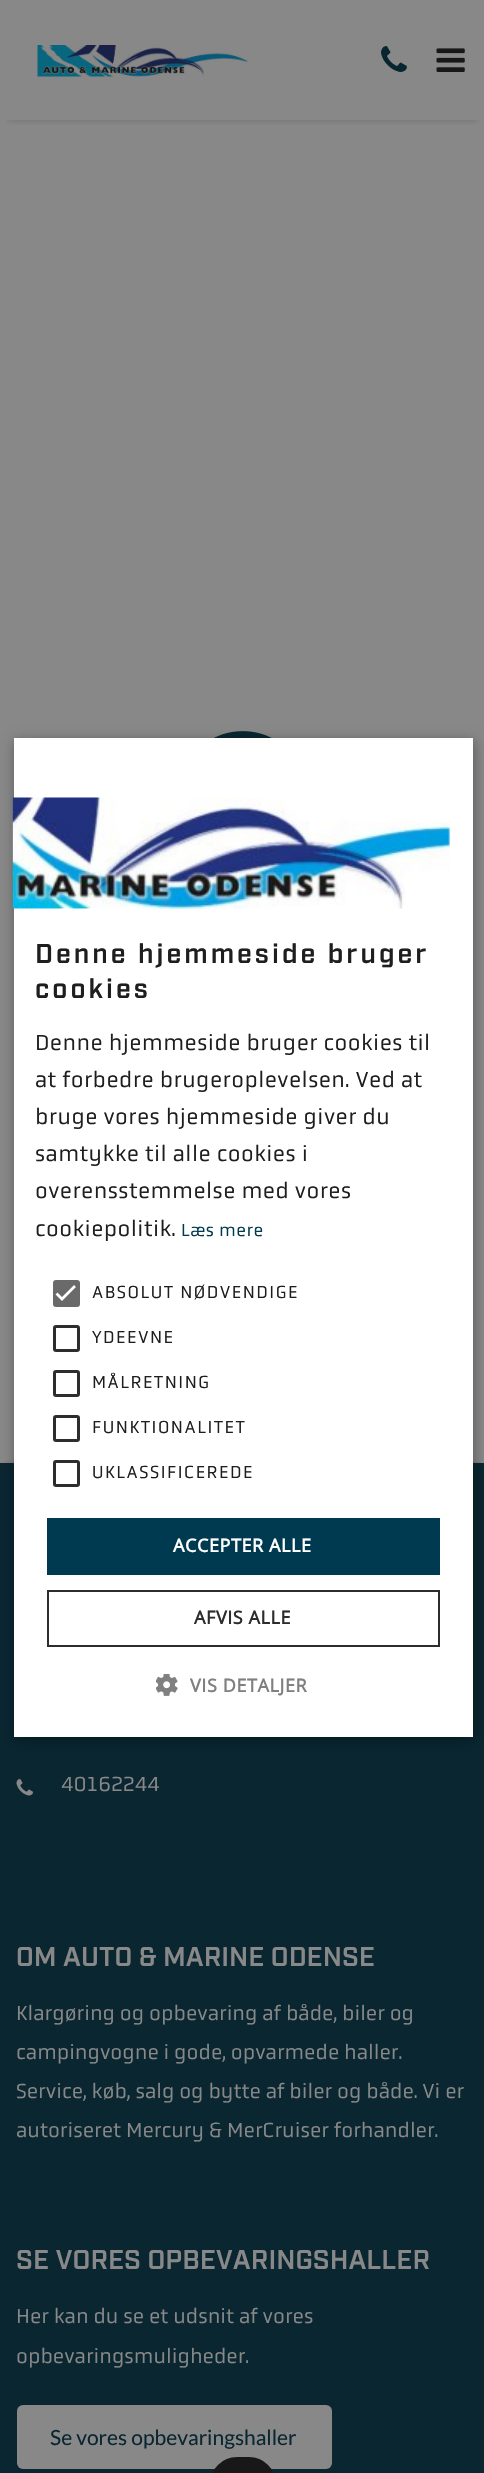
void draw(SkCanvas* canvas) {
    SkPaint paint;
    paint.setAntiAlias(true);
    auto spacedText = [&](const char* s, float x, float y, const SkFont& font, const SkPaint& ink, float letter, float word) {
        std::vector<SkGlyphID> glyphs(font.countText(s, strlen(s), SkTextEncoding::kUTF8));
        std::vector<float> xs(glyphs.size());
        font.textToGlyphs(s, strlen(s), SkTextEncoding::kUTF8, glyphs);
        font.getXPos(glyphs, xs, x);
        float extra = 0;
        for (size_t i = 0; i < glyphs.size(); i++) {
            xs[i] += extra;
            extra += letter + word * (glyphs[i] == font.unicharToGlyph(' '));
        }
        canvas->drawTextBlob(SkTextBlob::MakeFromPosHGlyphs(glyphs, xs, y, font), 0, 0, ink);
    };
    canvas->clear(0xFF888888);
    canvas->drawImageRect(SkImages::DeferredFromEncodedData(SkData::MakeFromFileName("img6.png")), SkRect::MakeXYWH(214, 731, 58, 7), SkSamplingOptions());
    paint.setColor(0x99090909);
    paint.setMaskFilter(SkMaskFilter::MakeBlur(kNormal_SkBlurStyle, 4));
    canvas->drawRect(SkRect::MakeXYWH(5, 1467, 475, 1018), paint);
    paint.setMaskFilter(nullptr);
    paint.setColor(0xFF092631);
    canvas->drawRect(SkRect::MakeXYWH(0, 1463, 484, 1010), paint);
    paint.setColor(0x59000000);
    paint.setMaskFilter(SkMaskFilter::MakeBlur(kNormal_SkBlurStyle, 6));
    canvas->drawRect(SkRect::MakeXYWH(15, 741, 459, 999), paint);
    paint.setMaskFilter(nullptr);
    paint.setColor(0xFFFFFFFF);
    canvas->drawRect(SkRect::MakeXYWH(14, 738, 459, 999), paint);
    canvas->drawImageRect(SkImages::DeferredFromEncodedData(SkData::MakeFromFileName("img1.png")), SkRect::MakeXYWH(12, 797, 438, 112), SkSamplingOptions());
    SkFont font1(fontMgr->matchFamilyStyle("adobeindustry", SkFontStyle(600, SkFontStyle::kNormal_Width, SkFontStyle::kUpright_Slant)), 27);
    font1.setSubpixel(true);
    paint.setColor(0xFF1E1E1E);
    spacedText("Denne hjemmeside bruger", 35, 963, font1, paint, 3, 0);
    spacedText("cookies", 35, 998, font1, paint, 3, 0);
    SkFont font2(fontMgr->matchFamilyStyle("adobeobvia", SkFontStyle(600, SkFontStyle::kNormal_Width, SkFontStyle::kUpright_Slant)), 22.5f);
    font2.setSubpixel(true);
    spacedText("Denne hjemmeside bruger cookies til", 35, 1050, font2, paint, 0.45f, 0);
    spacedText("at forbedre brugeroplevelsen. Ved at", 35, 1087, font2, paint, 0.45f, 0);
    spacedText("bruge vores hjemmeside giver du", 35, 1124, font2, paint, 0.45f, 0);
    spacedText("samtykke til alle cookies i", 35, 1161, font2, paint, 0.45f, 0);
    spacedText("overensstemmelse med vores", 35, 1198, font2, paint, 0.45f, 0);
    spacedText("cookiepolitik.", 35, 1236, font2, paint, 0.45f, 0);
    SkFont font3(fontMgr->matchFamilyStyle("adobeobvia", SkFontStyle(600, SkFontStyle::kNormal_Width, SkFontStyle::kUpright_Slant)), 18);
    font3.setSubpixel(true);
    paint.setColor(0xFF003A50);
    spacedText("Læs mere", 181, 1236, font3, paint, 0.45f, 0);
    paint.setColor(0xFF6A6A6A);
    canvas->drawRoundRect(SkRect::MakeXYWH(54.5f, 1281.5f, 24, 24), 1.5f, 1.5f, paint);
    paint.setStyle(SkPaint::kStroke_Style);
    paint.setStrokeWidth(3);
    canvas->drawRoundRect(SkRect::MakeXYWH(54.5f, 1281.5f, 24, 24), 1.5f, 1.5f, paint);
    paint.setStrokeWidth(2.7f);
    paint.setColor(0xFFFFFFFF);
    canvas->drawPath(SkPathBuilder().moveTo(56.5f, 1293.5f).lineTo(62, 1299).lineTo(75, 1286).detach(), paint);
    paint.setStyle(SkPaint::kFill_Style);
    paint.setColor(0xFF1E1E1E);
    spacedText("ABSOLUT NØDVENDIGE", 92, 1298, font3, paint, 1.5f, 0);
    paint.setStyle(SkPaint::kStroke_Style);
    paint.setStrokeWidth(3);
    paint.setColor(0xFF2D2D2D);
    canvas->drawRoundRect(SkRect::MakeXYWH(54.5f, 1326.5f, 24, 24), 1.5f, 1.5f, paint);
    paint.setStyle(SkPaint::kFill_Style);
    paint.setColor(0xFF1E1E1E);
    spacedText("YDEEVNE", 92, 1343, font3, paint, 1.5f, 0);
    paint.setStyle(SkPaint::kStroke_Style);
    paint.setColor(0xFF2D2D2D);
    canvas->drawRoundRect(SkRect::MakeXYWH(54.5f, 1371.5f, 24, 24), 1.5f, 1.5f, paint);
    paint.setStyle(SkPaint::kFill_Style);
    paint.setColor(0xFF1E1E1E);
    spacedText("MÅLRETNING", 92, 1388, font3, paint, 1.5f, 0);
    paint.setStyle(SkPaint::kStroke_Style);
    paint.setColor(0xFF2D2D2D);
    canvas->drawRoundRect(SkRect::MakeXYWH(54.5f, 1416.5f, 24, 24), 1.5f, 1.5f, paint);
    paint.setStyle(SkPaint::kFill_Style);
    paint.setColor(0xFF1E1E1E);
    spacedText("FUNKTIONALITET", 92, 1433, font3, paint, 1.5f, 0);
    paint.setStyle(SkPaint::kStroke_Style);
    paint.setColor(0xFF2D2D2D);
    canvas->drawRoundRect(SkRect::MakeXYWH(54.5f, 1461.5f, 24, 24), 1.5f, 1.5f, paint);
    paint.setStyle(SkPaint::kFill_Style);
    paint.setColor(0xFF1E1E1E);
    spacedText("UKLASSIFICEREDE", 92, 1478, font3, paint, 1.5f, 0);
    paint.setColor(0xFF003A50);
    canvas->drawRect(SkRect::MakeXYWH(47, 1518, 393, 57), paint);
    SkFont font4(fontMgr->matchFamilyStyle("Open Sans", SkFontStyle::Bold()), 18);
    font4.setSubpixel(true);
    paint.setColor(0xFFFFFFFF);
    spacedText("ACCEPTER ALLE", 173, 1552, font4, paint, 0.6f, 0);
    paint.setStyle(SkPaint::kStroke_Style);
    paint.setStrokeWidth(2);
    paint.setColor(0xFF2D2D2D);
    canvas->drawRect(SkRect::MakeXYWH(48, 1591, 391, 55), paint);
    paint.setStyle(SkPaint::kFill_Style);
    spacedText("AFVIS ALLE", 194, 1624, font4, paint, 0.6f, 0);
    canvas->drawImageRect(SkImages::DeferredFromEncodedData(SkData::MakeFromFileName("img2.png")), SkRect::MakeXYWH(156, 1674, 22, 22), SkSamplingOptions());
    paint.setColor(0xFF808080);
    spacedText("VIS DETALJER", 190, 1692, font4, paint, 0.6f, 0);
    canvas->save();
    canvas->clipRect(SkRect::MakeXYWH(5, 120, 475, 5));
    paint.setColor(0x33090909);
    paint.setMaskFilter(SkMaskFilter::MakeBlur(kNormal_SkBlurStyle, 4));
    canvas->drawRect(SkRect::MakeXYWH(8, 15, 469, 105), paint);
    paint.setMaskFilter(nullptr);
    canvas->restore();
    canvas->drawImageRect(SkImages::DeferredFromEncodedData(SkData::MakeFromFileName("img3.png")), SkRect::MakeXYWH(37, 45, 211, 32), SkSamplingOptions());
    canvas->drawImageRect(SkImages::DeferredFromEncodedData(SkData::MakeFromFileName("img4.png")), SkRect::MakeXYWH(381, 46, 26, 26), SkSamplingOptions());
    canvas->drawImageRect(SkImages::DeferredFromEncodedData(SkData::MakeFromFileName("img5.png")), SkRect::MakeXYWH(436, 48, 29, 24), SkSamplingOptions());
    canvas->drawImageRect(SkImages::DeferredFromEncodedData(SkData::MakeFromFileName("img7.png")), SkRect::MakeXYWH(16, 1779, 17, 17), SkSamplingOptions());
    SkFont font5(fontMgr->matchFamilyStyle("adobeobvia", SkFontStyle(600, SkFontStyle::kNormal_Width, SkFontStyle::kUpright_Slant)), 21);
    font5.setSubpixel(true);
    paint.setColor(0xFF888888);
    canvas->drawString("40162244", 61, 1791, font5, paint);
    canvas->drawString("OM AUTO & MARINE ODENSE", 16, 1966, font1, paint);
    canvas->drawString("Klargøring og opbevaring af både, biler og", 16, 2020, font5, paint);
    canvas->drawString("campingvogne i gode, opvarmede haller.", 16, 2059, font5, paint);
    canvas->drawString("Service, køb, salg og bytte af biler og både. Vi er", 16, 2098, font5, paint);
    canvas->drawString("autoriseret Mercury & MerCruiser forhandler.", 16, 2137, font5, paint);
    canvas->drawString("SE VORES OPBEVARINGSHALLER", 16, 2269, font1, paint);
    canvas->drawString("Her kan du se et udsnit af vores", 16, 2323, font5, paint);
    canvas->drawString("opbevaringsmuligheder.", 16, 2363, font5, paint);
    canvas->drawRoundRect(SkRect::MakeXYWH(17, 2405, 315, 64), 6, 6, paint);
    SkFont font6(fontMgr->matchFamilyStyle("Lato", SkFontStyle::Normal()), 21);
    font6.setSubpixel(true);
    paint.setColor(0xFF092631);
    canvas->drawString("Se vores opbevaringshaller", 50, 2445, font6, paint);
    paint.setColor(0xFF181818);
    canvas->drawRoundRect(SkRect::MakeXYWH(212.5f, 2459.5f, 61, 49), 30.5f, 30.5f, paint);
    paint.setStyle(SkPaint::kStroke_Style);
    paint.setStrokeWidth(5);
    canvas->drawRoundRect(SkRect::MakeXYWH(212.5f, 2459.5f, 61, 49), 30.5f, 30.5f, paint);
}
